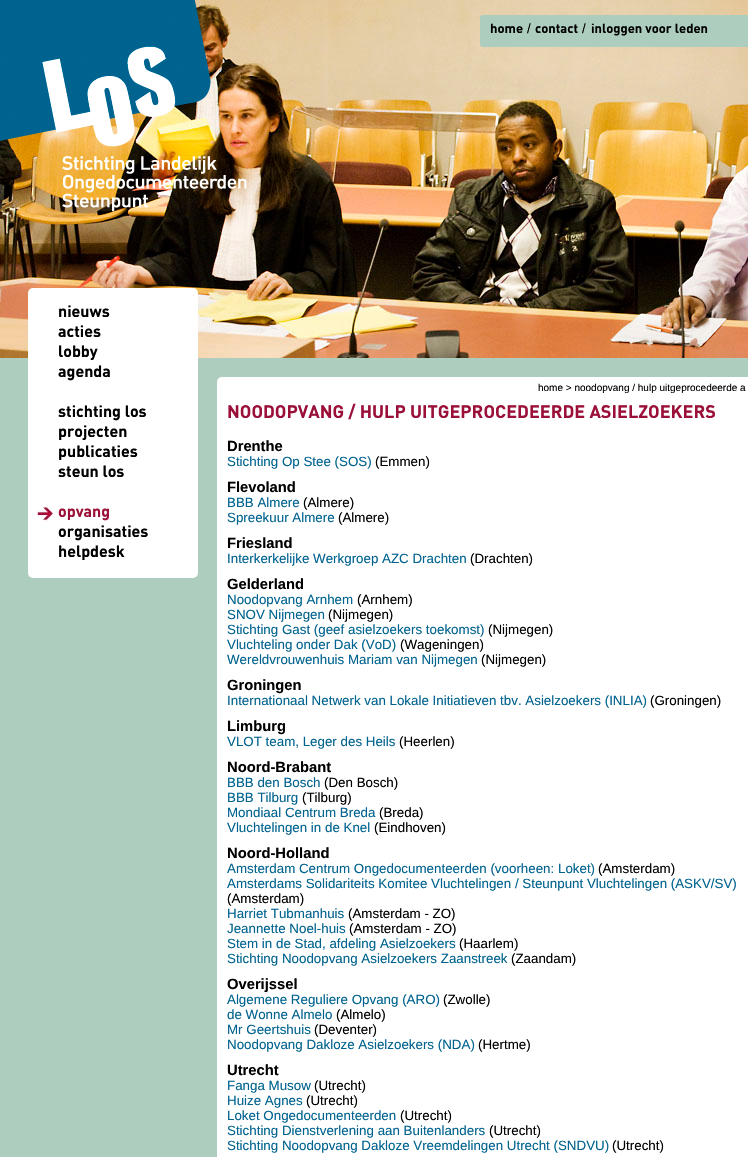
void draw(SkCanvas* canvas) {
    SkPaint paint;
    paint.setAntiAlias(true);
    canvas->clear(0xFFADCEBE);
    canvas->drawImageRect(SkImages::DeferredFromEncodedData(SkData::MakeFromFileName("img1.png")), SkRect::MakeXYWH(0, 0, 748, 358), SkSamplingOptions());
    canvas->drawImageRect(SkImages::DeferredFromEncodedData(SkData::MakeFromFileName("img2.png")), SkRect::MakeXYWH(0, 0, 247, 212), SkSamplingOptions());
    paint.setColor(0xFFADCEBE);
    canvas->drawRoundRect(SkRect::MakeXYWH(480, 15, 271, 32), 3, 3, paint);
    SkFont font1(fontMgr->matchFamilyStyle("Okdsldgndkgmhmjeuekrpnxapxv", SkFontStyle::Bold()), 13);
    font1.setSubpixel(true);
    paint.setColor(0xFF000000);
    canvas->drawString("home", 490, 33, font1, paint);
    SkFont font2(fontMgr->matchFamilyStyle("Liberation Sans", SkFontStyle::Normal()), 13.35f);
    font2.setSubpixel(true);
    canvas->drawString("/", 527, 33, font2, paint);
    canvas->drawString("contact", 535, 33, font1, paint);
    canvas->drawString("/", 582, 33, font2, paint);
    canvas->drawString("inloggen voor leden", 591, 33, font1, paint);
    paint.setColor(0xFFFFFFFF);
    canvas->drawRoundRect(SkRect::MakeXYWH(28, 288, 170, 290), 5, 5, paint);
    SkFont font3(fontMgr->matchFamilyStyle("Okdsldgndkgmhmjeuekrpnxapxv", SkFontStyle::Bold()), 16);
    font3.setSubpixel(true);
    paint.setColor(0xFF000000);
    canvas->drawString("nieuws", 58, 317, font3, paint);
    canvas->drawString("acties", 58, 337, font3, paint);
    canvas->drawString("lobby", 58, 357, font3, paint);
    canvas->drawString("agenda", 58, 377, font3, paint);
    canvas->drawString("stichting los", 58, 417, font3, paint);
    canvas->drawString("projecten", 58, 437, font3, paint);
    canvas->drawString("publicaties", 58, 457, font3, paint);
    canvas->drawString("steun los", 58, 477, font3, paint);
    canvas->drawImageRect(SkImages::DeferredFromEncodedData(SkData::MakeFromFileName("img3.png")), SkRect::MakeXYWH(37, 506, 17, 16), SkSamplingOptions());
    paint.setColor(0xFF9B1039);
    canvas->drawString("opvang", 58, 517, font3, paint);
    paint.setColor(0xFF000000);
    canvas->drawString("organisaties", 58, 537, font3, paint);
    canvas->drawString("helpdesk", 58, 557, font3, paint);
    paint.setColor(0xFFFFFFFF);
    canvas->drawRoundRect(SkRect::MakeXYWH(217, 377, 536, 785), 5, 5, paint);
    SkFont font4(fontMgr->matchFamilyStyle("Liberation Sans", SkFontStyle::Normal()), 10);
    font4.setSubpixel(true);
    paint.setColor(0xFF000000);
    canvas->drawString("home > noodopvang / hulp uitgeprocedeerde a", 538, 391, font4, paint);
    SkFont font5(fontMgr->matchFamilyStyle("Okdsldgndkgmhmjeuekrpnxapxv", SkFontStyle::Bold()), 18);
    font5.setSubpixel(true);
    paint.setColor(0xFF9B1039);
    canvas->drawString("NOODOPVANG / HULP UITGEPROCEDEERDE ASIELZOEKERS", 227, 418, font5, paint);
    SkFont font6(fontMgr->matchFamilyStyle("Liberation Sans", SkFontStyle::Bold()), 14.75f);
    font6.setSubpixel(true);
    paint.setColor(0xFF000000);
    canvas->drawString("Drenthe", 227, 451, font6, paint);
    paint.setColor(0xFF00638F);
    canvas->drawString("Stichting Op Stee (SOS)", 227, 466, font2, paint);
    paint.setColor(0xFF000000);
    canvas->drawString("(Emmen)", 375, 466, font2, paint);
    canvas->drawString("Flevoland", 227, 492, font6, paint);
    paint.setColor(0xFF00638F);
    canvas->drawString("BBB Almere", 227, 507, font2, paint);
    paint.setColor(0xFF000000);
    canvas->drawString("(Almere)", 303, 507, font2, paint);
    paint.setColor(0xFF00638F);
    canvas->drawString("Spreekuur Almere", 227, 522, font2, paint);
    paint.setColor(0xFF000000);
    canvas->drawString("(Almere)", 338, 522, font2, paint);
    canvas->drawString("Friesland", 227, 548, font6, paint);
    paint.setColor(0xFF00638F);
    canvas->drawString("Interkerkelijke Werkgroep AZC Drachten", 227, 563, font2, paint);
    paint.setColor(0xFF000000);
    canvas->drawString("(Drachten)", 470, 563, font2, paint);
    canvas->drawString("Gelderland", 227, 589, font6, paint);
    paint.setColor(0xFF00638F);
    canvas->drawString("Noodopvang Arnhem", 227, 604, font2, paint);
    paint.setColor(0xFF000000);
    canvas->drawString("(Arnhem)", 357, 604, font2, paint);
    paint.setColor(0xFF00638F);
    canvas->drawString("SNOV Nijmegen", 227, 619, font2, paint);
    paint.setColor(0xFF000000);
    canvas->drawString("(Nijmegen)", 328, 619, font2, paint);
    paint.setColor(0xFF00638F);
    canvas->drawString("Stichting Gast (geef asielzoekers toekomst)", 227, 634, font2, paint);
    paint.setColor(0xFF000000);
    canvas->drawString("(Nijmegen)", 488, 634, font2, paint);
    paint.setColor(0xFF00638F);
    canvas->drawString("Vluchteling onder Dak (VoD)", 227, 649, font2, paint);
    paint.setColor(0xFF000000);
    canvas->drawString("(Wageningen)", 400, 649, font2, paint);
    paint.setColor(0xFF00638F);
    canvas->drawString("Wereldvrouwenhuis Mariam van Nijmegen", 227, 664, font2, paint);
    paint.setColor(0xFF000000);
    canvas->drawString("(Nijmegen)", 481, 664, font2, paint);
    canvas->drawString("Groningen", 227, 690, font6, paint);
    paint.setColor(0xFF00638F);
    canvas->drawString("Internationaal Netwerk van Lokale Initiatieven tbv. Asielzoekers (INLIA)", 227, 705, font2, paint);
    paint.setColor(0xFF000000);
    canvas->drawString("(Groningen)", 650, 705, font2, paint);
    canvas->drawString("Limburg", 227, 731, font6, paint);
    paint.setColor(0xFF00638F);
    canvas->drawString("VLOT team, Leger des Heils", 227, 746, font2, paint);
    paint.setColor(0xFF000000);
    canvas->drawString("(Heerlen)", 399, 746, font2, paint);
    canvas->drawString("Noord-Brabant", 227, 772, font6, paint);
    paint.setColor(0xFF00638F);
    canvas->drawString("BBB den Bosch", 227, 787, font2, paint);
    paint.setColor(0xFF000000);
    canvas->drawString("(Den Bosch)", 324, 787, font2, paint);
    paint.setColor(0xFF00638F);
    canvas->drawString("BBB Tilburg", 227, 802, font2, paint);
    paint.setColor(0xFF000000);
    canvas->drawString("(Tilburg)", 302, 802, font2, paint);
    paint.setColor(0xFF00638F);
    canvas->drawString("Mondiaal Centrum Breda", 227, 817, font2, paint);
    paint.setColor(0xFF000000);
    canvas->drawString("(Breda)", 379, 817, font2, paint);
    paint.setColor(0xFF00638F);
    canvas->drawString("Vluchtelingen in de Knel", 227, 832, font2, paint);
    paint.setColor(0xFF000000);
    canvas->drawString("(Eindhoven)", 374, 832, font2, paint);
    canvas->drawString("Noord-Holland", 227, 858, font6, paint);
    paint.setColor(0xFF00638F);
    canvas->drawString("Amsterdam Centrum Ongedocumenteerden (voorheen: Loket)", 227, 873, font2, paint);
    paint.setColor(0xFF000000);
    canvas->drawString("(Amsterdam)", 598, 873, font2, paint);
    paint.setColor(0xFF00638F);
    canvas->drawString("Amsterdams Solidariteits Komitee Vluchtelingen / Steunpunt Vluchtelingen (ASKV/SV)", 227, 888, font2, paint);
    paint.setColor(0xFF000000);
    canvas->drawString("(Amsterdam)", 227, 903, font2, paint);
    paint.setColor(0xFF00638F);
    canvas->drawString("Harriet Tubmanhuis", 227, 918, font2, paint);
    paint.setColor(0xFF000000);
    canvas->drawString("(Amsterdam - ZO)", 348, 918, font2, paint);
    paint.setColor(0xFF00638F);
    canvas->drawString("Jeannette Noel-huis", 227, 933, font2, paint);
    paint.setColor(0xFF000000);
    canvas->drawString("(Amsterdam - ZO)", 349, 933, font2, paint);
    paint.setColor(0xFF00638F);
    canvas->drawString("Stem in de Stad, afdeling Asielzoekers", 227, 948, font2, paint);
    paint.setColor(0xFF000000);
    canvas->drawString("(Haarlem)", 459, 948, font2, paint);
    paint.setColor(0xFF00638F);
    canvas->drawString("Stichting Noodopvang Asielzoekers Zaanstreek", 227, 963, font2, paint);
    paint.setColor(0xFF000000);
    canvas->drawString("(Zaandam)", 511, 963, font2, paint);
    canvas->drawString("Overijssel", 227, 989, font6, paint);
    paint.setColor(0xFF00638F);
    canvas->drawString("Algemene Reguliere Opvang (ARO)", 227, 1004, font2, paint);
    paint.setColor(0xFF000000);
    canvas->drawString("(Zwolle)", 443, 1004, font2, paint);
    paint.setColor(0xFF00638F);
    canvas->drawString("de Wonne Almelo", 227, 1019, font2, paint);
    paint.setColor(0xFF000000);
    canvas->drawString("(Almelo)", 336, 1019, font2, paint);
    paint.setColor(0xFF00638F);
    canvas->drawString("Mr Geertshuis", 227, 1034, font2, paint);
    paint.setColor(0xFF000000);
    canvas->drawString("(Deventer)", 314, 1034, font2, paint);
    paint.setColor(0xFF00638F);
    canvas->drawString("Noodopvang Dakloze Asielzoekers (NDA)", 227, 1049, font2, paint);
    paint.setColor(0xFF000000);
    canvas->drawString("(Hertme)", 478, 1049, font2, paint);
    canvas->drawString("Utrecht", 227, 1075, font6, paint);
    paint.setColor(0xFF00638F);
    canvas->drawString("Fanga Musow", 227, 1090, font2, paint);
    paint.setColor(0xFF000000);
    canvas->drawString("(Utrecht)", 314, 1090, font2, paint);
    paint.setColor(0xFF00638F);
    canvas->drawString("Huize Agnes", 227, 1105, font2, paint);
    paint.setColor(0xFF000000);
    canvas->drawString("(Utrecht)", 306, 1105, font2, paint);
    paint.setColor(0xFF00638F);
    canvas->drawString("Loket Ongedocumenteerden", 227, 1120, font2, paint);
    paint.setColor(0xFF000000);
    canvas->drawString("(Utrecht)", 400, 1120, font2, paint);
    paint.setColor(0xFF00638F);
    canvas->drawString("Stichting Dienstverlening aan Buitenlanders", 227, 1135, font2, paint);
    paint.setColor(0xFF000000);
    canvas->drawString("(Utrecht)", 489, 1135, font2, paint);
    paint.setColor(0xFF00638F);
    canvas->drawString("Stichting Noodopvang Dakloze Vreemdelingen Utrecht (SNDVU)", 227, 1150, font2, paint);
    paint.setColor(0xFF000000);
    canvas->drawString("(Utrecht)", 612, 1150, font2, paint);
}
